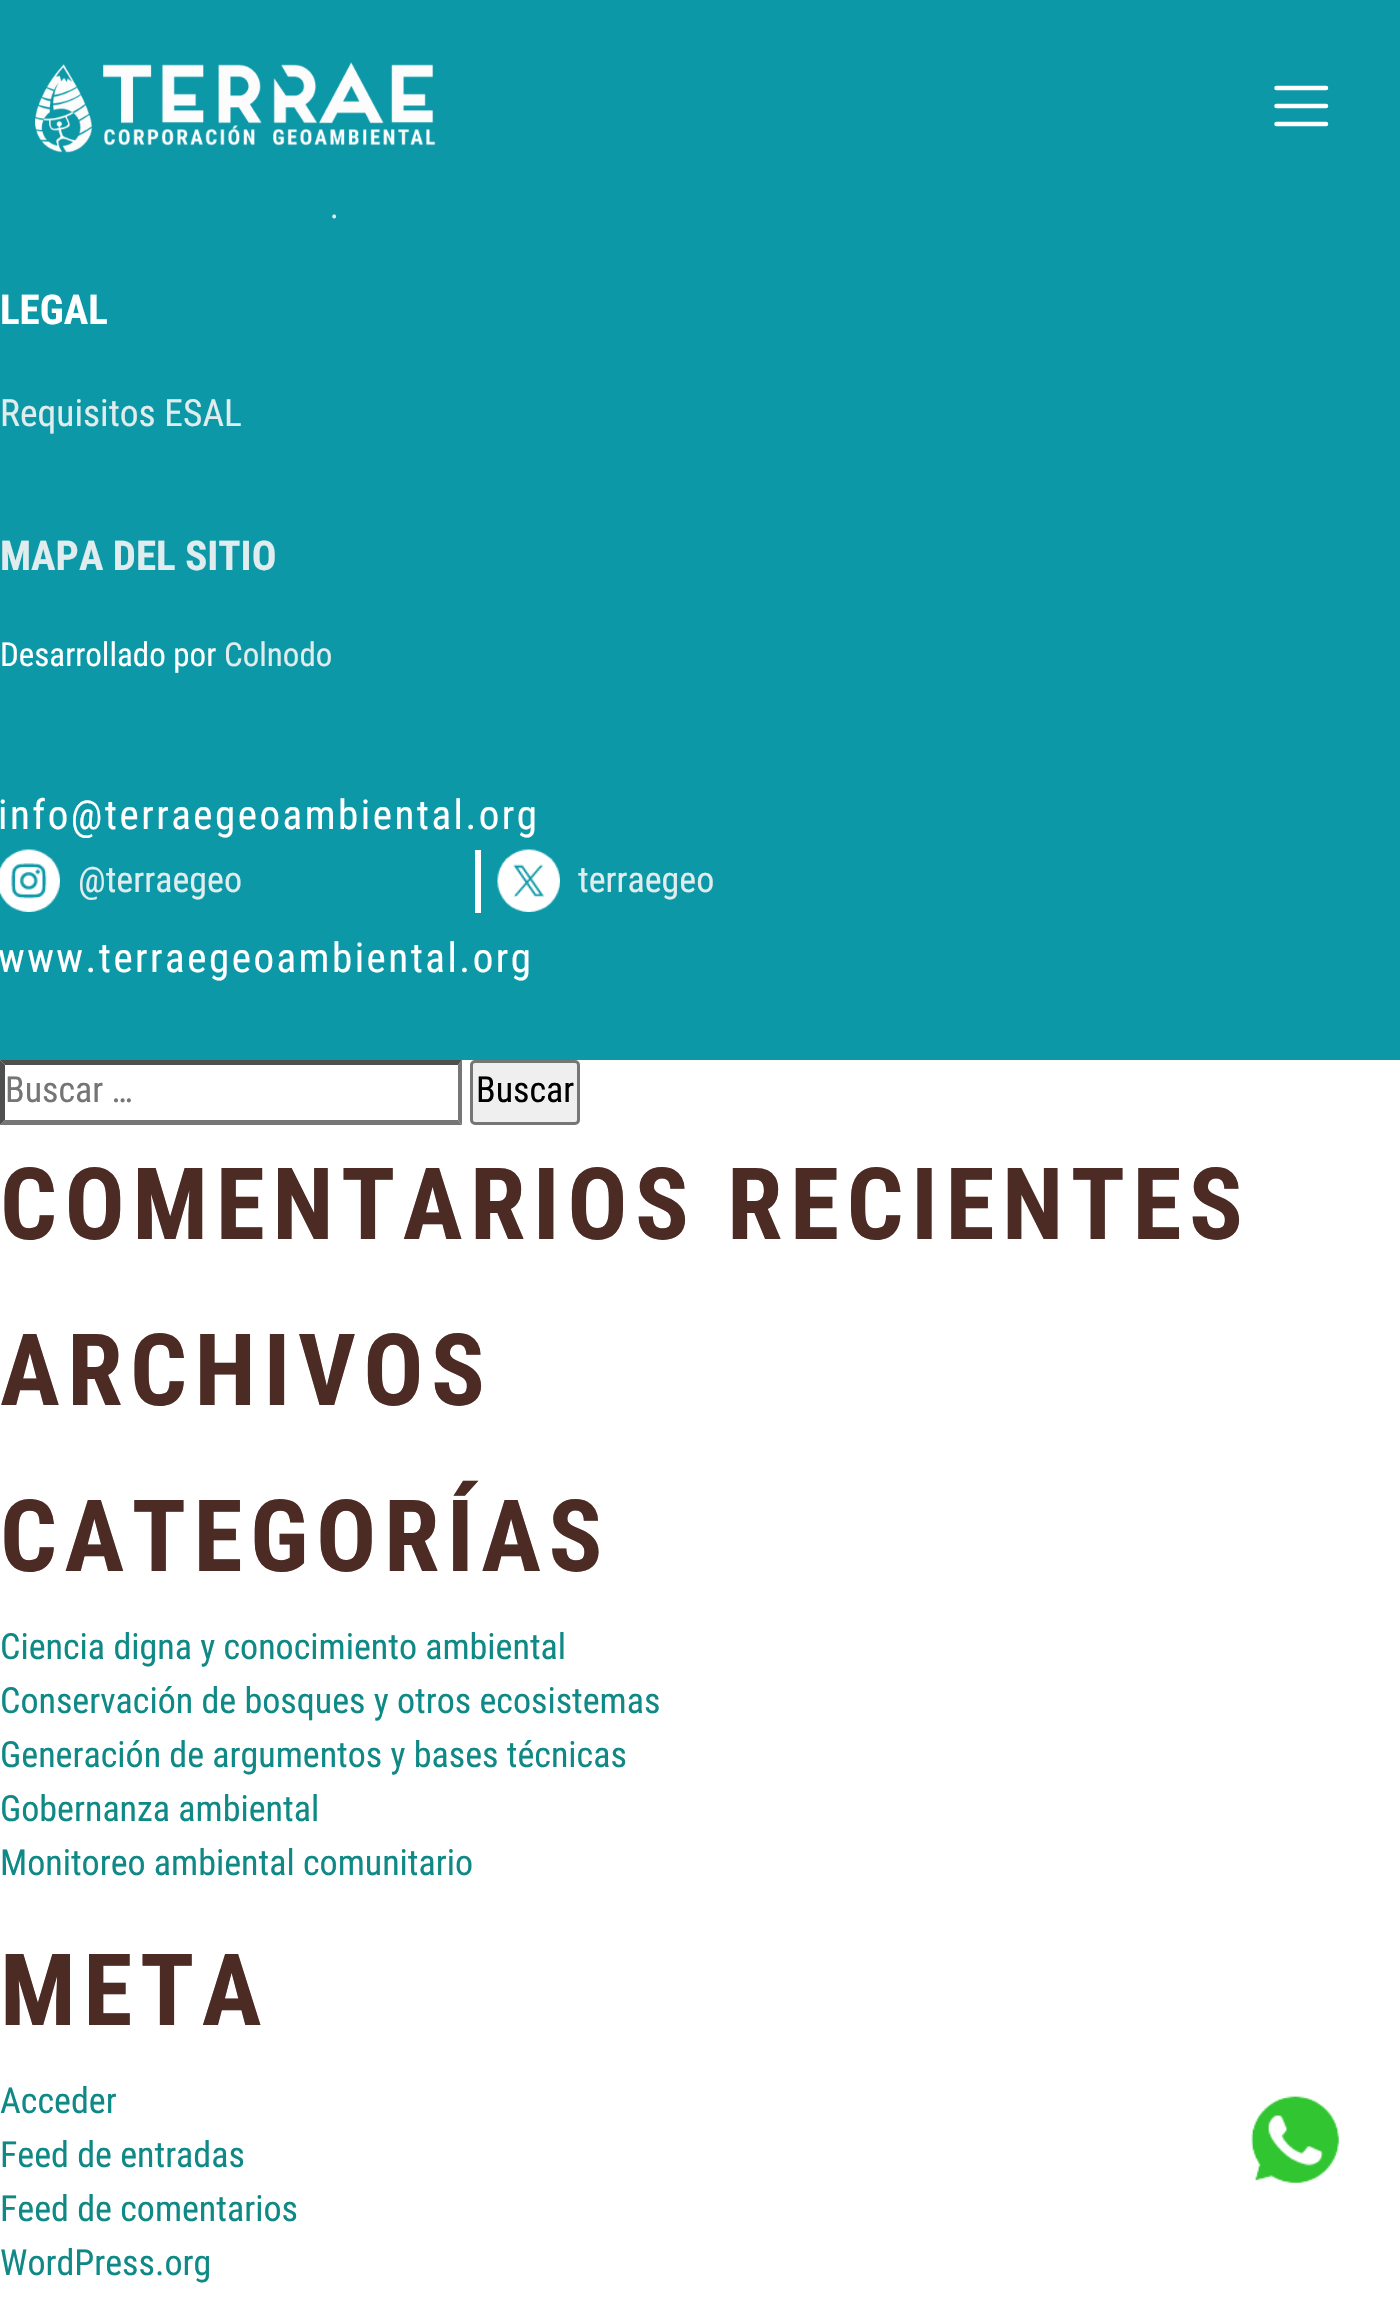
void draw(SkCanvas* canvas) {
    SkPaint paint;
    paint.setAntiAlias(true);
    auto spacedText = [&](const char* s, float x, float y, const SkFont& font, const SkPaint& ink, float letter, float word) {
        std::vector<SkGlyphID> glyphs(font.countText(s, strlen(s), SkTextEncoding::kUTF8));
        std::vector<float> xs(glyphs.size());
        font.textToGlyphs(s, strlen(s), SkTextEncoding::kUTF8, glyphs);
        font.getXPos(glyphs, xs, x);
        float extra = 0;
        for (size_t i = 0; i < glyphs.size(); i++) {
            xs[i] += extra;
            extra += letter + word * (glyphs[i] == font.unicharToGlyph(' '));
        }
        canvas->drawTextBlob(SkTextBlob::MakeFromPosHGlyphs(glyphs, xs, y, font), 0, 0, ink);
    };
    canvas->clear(0xFFFFFFFF);
    paint.setColor(0xFF0C98A7);
    canvas->drawRect(SkRect::MakeXYWH(0, 0, 1400, 1060), paint);
    canvas->drawImageRect(SkImages::DeferredFromEncodedData(SkData::MakeFromFileName("img1.png")), SkRect::MakeXYWH(35, 62, 401, 91), SkSamplingOptions());
    paint.setStyle(SkPaint::kStroke_Style);
    paint.setStrokeWidth(4.5f);
    paint.setStrokeCap(SkPaint::kRound_Cap);
    paint.setColor(0xFFFFFFFF);
    canvas->drawPath(SkPathBuilder().moveTo(1276.5f, 88).lineTo(1326, 88).moveTo(1276.5f, 106).lineTo(1326, 106).moveTo(1276.5f, 124).lineTo(1326, 124).detach(), paint);
    SkFont font1(fontMgr->matchFamilyStyle("Roboto Condensed", SkFontStyle::Normal()), 33);
    font1.setSubpixel(true);
    paint.setStyle(SkPaint::kFill_Style);
    paint.setColor(0xFFE0ECED);
    canvas->drawString(".", 330, 218, font1, paint);
    SkFont font2(fontMgr->matchFamilyStyle("Roboto Condensed", SkFontStyle::Bold()), 41);
    font2.setSubpixel(true);
    paint.setColor(0xFFFFFFFF);
    canvas->drawString("LEGAL", 0, 324, font2, paint);
    SkFont font3(fontMgr->matchFamilyStyle("Roboto Condensed", SkFontStyle::Normal()), 37.5f);
    font3.setSubpixel(true);
    paint.setColor(0xFFE0ECED);
    canvas->drawString("Requisitos ESAL", 0, 426, font3, paint);
    canvas->drawString("MAPA DEL SITIO", 0, 570, font2, paint);
    paint.setColor(0xFFFFFFFF);
    canvas->drawString("Desarrollado por", 0, 666, font1, paint);
    paint.setColor(0xFFE0ECED);
    canvas->drawString("Colnodo", 224, 666, font1, paint);
    SkFont font4(fontMgr->matchFamilyStyle("Roboto Condensed", SkFontStyle::Normal()), 41);
    font4.setSubpixel(true);
    paint.setColor(0xFFFFFFFF);
    spacedText("info@terraegeoambiental.org", -2, 829, font4, paint, 2.5f, 0);
    canvas->drawRect(SkRect::MakeXYWH(475, 850, 6, 63), paint);
    canvas->drawImageRect(SkImages::DeferredFromEncodedData(SkData::MakeFromFileName("img2.png")), SkRect::MakeXYWH(0, 849, 60, 63), SkSamplingOptions());
    SkFont font5(fontMgr->matchFamilyStyle("Roboto Condensed", SkFontStyle::Normal()), 36);
    font5.setSubpixel(true);
    paint.setColor(0xFFE0ECED);
    canvas->drawString("@terraegeo", 78, 892, font5, paint);
    canvas->drawImageRect(SkImages::DeferredFromEncodedData(SkData::MakeFromFileName("img3.png")), SkRect::MakeXYWH(497, 849, 63, 63), SkSamplingOptions());
    canvas->drawString("terraegeo", 578, 892, font5, paint);
    paint.setColor(0xFFFFFFFF);
    spacedText("www.terraegeoambiental.org", -2, 972, font4, paint, 2.5f, 0);
    canvas->drawImageRect(SkImages::DeferredFromEncodedData(SkData::MakeFromFileName("img4.png")), SkRect::MakeXYWH(1251, 2096, 88, 88), SkSamplingOptions());
    paint.setColor(0xFF4F4F4F);
    canvas->drawPath(SkPathBuilder().moveTo(0, 1060).lineTo(462, 1060).lineTo(458, 1065).lineTo(5, 1065).close().detach(), paint);
    paint.setColor(0xFF767676);
    canvas->drawPath(SkPathBuilder().moveTo(462, 1060).lineTo(462, 1125).lineTo(458, 1120).lineTo(458, 1065).close().detach(), paint);
    canvas->drawPath(SkPathBuilder().moveTo(462, 1125).lineTo(0, 1125).lineTo(5, 1120).lineTo(458, 1120).close().detach(), paint);
    paint.setColor(0xFF4F4F4F);
    canvas->drawPath(SkPathBuilder().moveTo(0, 1125).lineTo(0, 1060).lineTo(5, 1065).lineTo(5, 1120).close().detach(), paint);
    paint.setColor(0xFF757575);
    canvas->drawString("Buscar …", 5, 1102, font5, paint);
    paint.setColor(0xFFEFEFEF);
    canvas->drawRoundRect(SkRect::MakeXYWH(471.5f, 1061.5f, 107, 62), 3.5f, 3.5f, paint);
    paint.setStyle(SkPaint::kStroke_Style);
    paint.setStrokeWidth(3);
    paint.setStrokeCap(SkPaint::kButt_Cap);
    paint.setColor(0xFF767676);
    canvas->drawRoundRect(SkRect::MakeXYWH(471.5f, 1061.5f, 107, 62), 3.5f, 3.5f, paint);
    paint.setStyle(SkPaint::kFill_Style);
    paint.setColor(0xFF000000);
    canvas->drawString("Buscar", 476, 1102, font5, paint);
    SkFont font6(fontMgr->matchFamilyStyle("Roboto Condensed", SkFontStyle::Bold()), 100);
    font6.setSubpixel(true);
    paint.setColor(0xFF4C2B24);
    spacedText("COMENTARIOS RECIENTES", 0, 1239, font6, paint, 7.5f, 0);
    spacedText("ARCHIVOS", 0, 1405, font6, paint, 7.5f, 0);
    spacedText("CATEGORÍAS", 0, 1571, font6, paint, 7.5f, 0);
    paint.setColor(0xFF0E8986);
    canvas->drawString("Ciencia digna y conocimiento ambiental", 0, 1659, font5, paint);
    canvas->drawString("Conservación de bosques y otros ecosistemas", 0, 1713, font5, paint);
    canvas->drawString("Generación de argumentos y bases técnicas", 0, 1767, font5, paint);
    canvas->drawString("Gobernanza ambiental", 0, 1821, font5, paint);
    canvas->drawString("Monitoreo ambiental comunitario", 0, 1875, font5, paint);
    paint.setColor(0xFF4C2B24);
    spacedText("META", 0, 2025, font6, paint, 7.5f, 0);
    paint.setColor(0xFF0E8986);
    canvas->drawString("Acceder", 0, 2113, font5, paint);
    canvas->drawString("Feed de entradas", 0, 2167, font5, paint);
    canvas->drawString("Feed de comentarios", 0, 2221, font5, paint);
    canvas->drawString("WordPress.org", 0, 2275, font5, paint);
}
